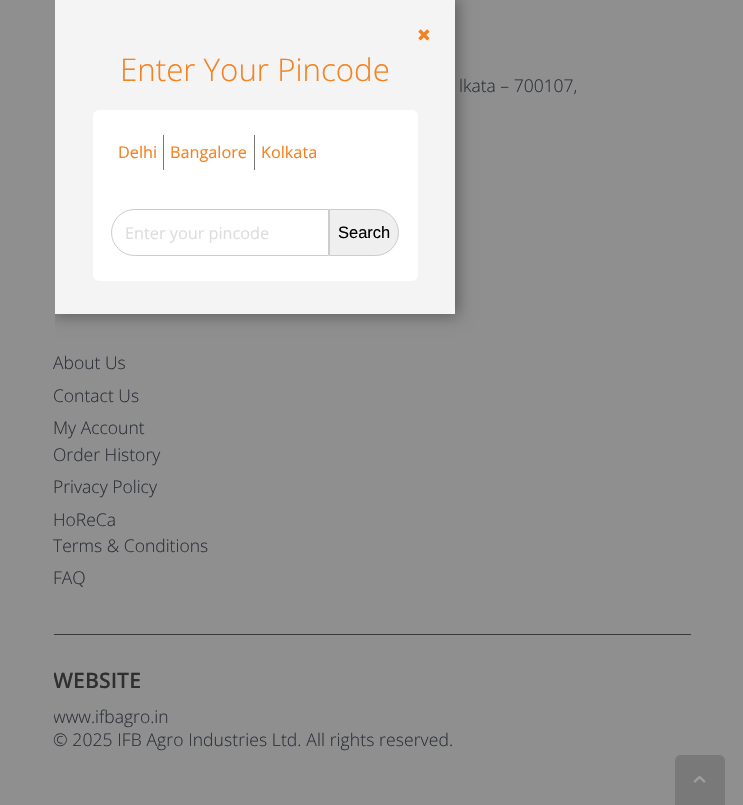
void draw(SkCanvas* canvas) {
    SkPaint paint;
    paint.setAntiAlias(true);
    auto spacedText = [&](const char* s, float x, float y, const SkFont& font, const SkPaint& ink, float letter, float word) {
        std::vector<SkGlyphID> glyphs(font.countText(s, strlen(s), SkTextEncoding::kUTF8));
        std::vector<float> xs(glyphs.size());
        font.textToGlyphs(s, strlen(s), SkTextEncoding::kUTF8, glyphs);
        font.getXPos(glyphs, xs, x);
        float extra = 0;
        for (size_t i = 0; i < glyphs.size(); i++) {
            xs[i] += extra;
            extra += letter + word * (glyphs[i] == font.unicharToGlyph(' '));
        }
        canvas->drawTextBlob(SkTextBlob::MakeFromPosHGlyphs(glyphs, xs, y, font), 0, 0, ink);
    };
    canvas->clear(0xFF8F8F8F);
    canvas->save();
    canvas->clipRect(SkRect::MakeXYWH(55, 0, 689, 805));
    paint.setColor(0x59000000);
    paint.setMaskFilter(SkMaskFilter::MakeBlur(kNormal_SkBlurStyle, 7.5f));
    canvas->drawRect(SkRect::MakeXYWH(53, -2, 405, 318), paint);
    paint.setMaskFilter(nullptr);
    canvas->restore();
    paint.setColor(0xFFF4F4F4);
    canvas->drawRect(SkRect::MakeXYWH(55, 0, 400, 314), paint);
    canvas->drawImageRect(SkImages::DeferredFromEncodedData(SkData::MakeFromFileName("img1.png")), SkRect::MakeXYWH(418, 29, 12, 12), SkSamplingOptions());
    SkFont font1(fontMgr->matchFamilyStyle("Open Sans", SkFontStyle(300, SkFontStyle::kNormal_Width, SkFontStyle::kUpright_Slant)), 31.25f);
    font1.setSubpixel(true);
    paint.setColor(0xFFF58220);
    canvas->drawString("Enter Your Pincode", 120, 81, font1, paint);
    paint.setColor(0xFFFFFFFF);
    canvas->drawRoundRect(SkRect::MakeXYWH(93, 110, 325, 171), 6, 6, paint);
    paint.setColor(0xFF777777);
    canvas->drawRect(SkRect::MakeXYWH(163, 135, 1, 35), paint);
    SkFont font2(fontMgr->matchFamilyStyle("Open Sans", SkFontStyle::Normal()), 16.25f);
    font2.setSubpixel(true);
    paint.setColor(0xFFF58220);
    canvas->drawString("Delhi", 118, 158, font2, paint);
    paint.setColor(0xFF777777);
    canvas->drawRect(SkRect::MakeXYWH(254, 135, 1, 35), paint);
    paint.setColor(0xFFF58220);
    canvas->drawString("Bangalore", 170, 158, font2, paint);
    canvas->drawString("Kolkata", 261, 158, font2, paint);
    paint.setStyle(SkPaint::kStroke_Style);
    paint.setStrokeWidth(1);
    paint.setColor(0xFFCCCCCC);
    canvas->drawPath(SkPathBuilder().moveTo(134.5f, 209.5f).lineTo(328.5f, 209.5f).lineTo(328.5f, 255.5f).lineTo(134.5f, 255.5f).cubicTo(122, 255.5f, 111.5f, 245, 111.5f, 232.5f).cubicTo(111.5f, 220, 122, 209.5f, 134.5f, 209.5f).close().detach(), paint);
    paint.setStyle(SkPaint::kFill_Style);
    paint.setColor(0xFFDDDDDD);
    canvas->drawString("Enter your pincode", 125, 239, font2, paint);
    paint.setColor(0xFFEFEFEF);
    canvas->drawPath(SkPathBuilder().moveTo(329.5f, 209.5f).lineTo(375.5f, 209.5f).cubicTo(388, 209.5f, 398.5f, 220, 398.5f, 232.5f).cubicTo(398.5f, 245, 388, 255.5f, 375.5f, 255.5f).lineTo(329.5f, 255.5f).close().detach(), paint);
    paint.setStyle(SkPaint::kStroke_Style);
    paint.setColor(0xFFCCCCCC);
    canvas->drawPath(SkPathBuilder().moveTo(329.5f, 209.5f).lineTo(375.5f, 209.5f).cubicTo(388, 209.5f, 398.5f, 220, 398.5f, 232.5f).cubicTo(398.5f, 245, 388, 255.5f, 375.5f, 255.5f).lineTo(329.5f, 255.5f).close().detach(), paint);
    SkFont font3(fontMgr->matchFamilyStyle("Liberation Sans", SkFontStyle::Normal()), 16.5f);
    font3.setSubpixel(true);
    paint.setStyle(SkPaint::kFill_Style);
    paint.setColor(0xFF000000);
    canvas->drawString("Search", 338, 238, font3, paint);
    SkFont font4(fontMgr->matchFamilyStyle("Open Sans", SkFontStyle(300, SkFontStyle::kNormal_Width, SkFontStyle::kUpright_Slant)), 17.5f);
    font4.setSubpixel(true);
    paint.setColor(0xFF2B2F37);
    canvas->drawString("lkata – 700107,", 459, 92, font4, paint);
    canvas->drawString("About Us", 53, 369, font4, paint);
    canvas->drawString("Contact Us", 53, 402, font4, paint);
    canvas->drawString("My Account", 53, 434, font4, paint);
    canvas->drawString("Order History", 53, 461, font4, paint);
    canvas->drawString("Privacy Policy", 53, 493, font4, paint);
    canvas->drawString("HoReCa", 53, 526, font4, paint);
    canvas->drawString("Terms & Conditions", 53, 552, font4, paint);
    canvas->drawString("FAQ", 53, 584, font4, paint);
    paint.setColor(0xFF383835);
    canvas->drawRect(SkRect::MakeXYWH(54, 634, 637, 1), paint);
    canvas->save();
    canvas->clipRect(SkRect::MakeXYWH(54, 635, 637, 140));
    SkFont font5(fontMgr->matchFamilyStyle("Open Sans", SkFontStyle(600, SkFontStyle::kNormal_Width, SkFontStyle::kUpright_Slant)), 21.25f);
    font5.setSubpixel(true);
    paint.setColor(0xFF2F2F30);
    canvas->drawString("WEBSITE", 53, 688, font5, paint);
    paint.setColor(0xFF2B2F37);
    canvas->drawString("www.ifbagro.in", 53, 723, font4, paint);
    canvas->restore();
    spacedText("© 2025 IFB Agro Industries Ltd. All rights reserved.", 53, 746, font4, paint, 0.1f, 0);
    paint.setColor(0xFF797979);
    canvas->drawPath(SkPathBuilder().moveTo(681, 755).lineTo(719, 755).cubicTo(722.5f, 755, 725, 757.5f, 725, 761).lineTo(725, 805).lineTo(675, 805).lineTo(675, 761).cubicTo(675, 757.5f, 677.5f, 755, 681, 755).close().detach(), paint);
    canvas->drawImageRect(SkImages::DeferredFromEncodedData(SkData::MakeFromFileName("img2.png")), SkRect::MakeXYWH(693, 776, 13, 7), SkSamplingOptions());
}
